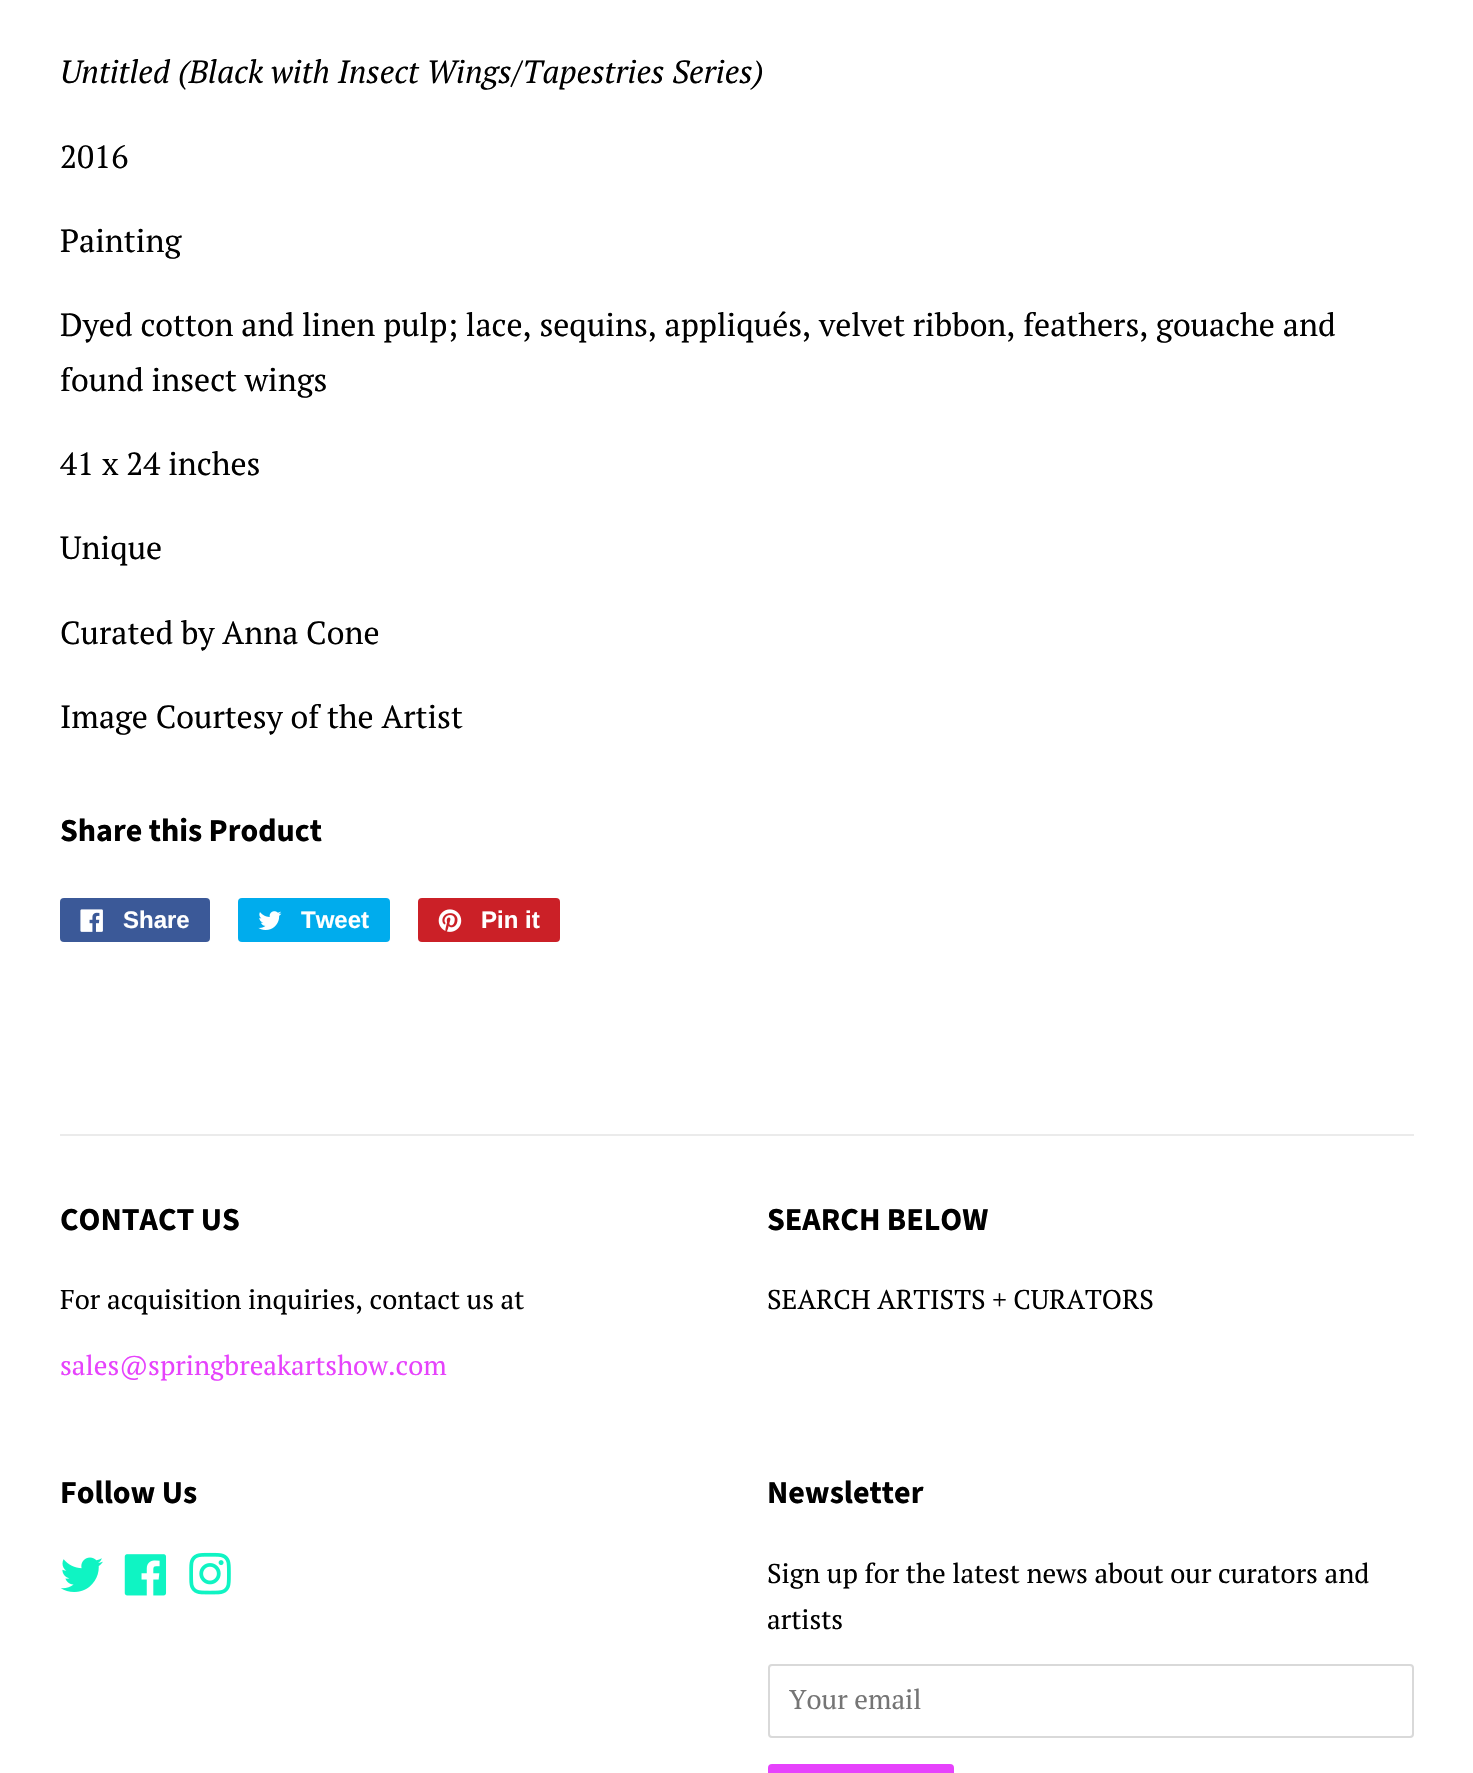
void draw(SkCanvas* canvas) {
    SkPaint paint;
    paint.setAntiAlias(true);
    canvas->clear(0xFFFFFFFF);
    SkFont font1(fontMgr->matchFamilyStyle("PT Serif", SkFontStyle::Italic()), 32);
    font1.setSubpixel(true);
    paint.setColor(0xFF000000);
    canvas->drawString("Untitled (Black with Insect Wings/Tapestries Series)", 60, 83, font1, paint);
    SkFont font2(fontMgr->matchFamilyStyle("PT Serif", SkFontStyle::Normal()), 32);
    font2.setSubpixel(true);
    canvas->drawString("2016", 60, 168, font2, paint);
    canvas->drawString("Painting", 60, 252, font2, paint);
    canvas->drawString("Dyed cotton and linen pulp; lace, sequins, appliqués, velvet ribbon, feathers, gouache and", 60, 336, font2, paint);
    canvas->drawString("found insect wings", 60, 391, font2, paint);
    canvas->drawString("41 x 24 inches", 60, 475, font2, paint);
    canvas->drawString("Unique", 60, 559, font2, paint);
    canvas->drawString("Curated by Anna Cone", 60, 644, font2, paint);
    canvas->drawString("Image Courtesy of the Artist", 60, 728, font2, paint);
    SkFont font3(fontMgr->matchFamilyStyle("Source Sans Pro", SkFontStyle::Bold()), 32);
    font3.setSubpixel(true);
    canvas->drawString("Share this Product", 60, 841, font3, paint);
    paint.setColor(0xFF3B5998);
    canvas->drawRoundRect(SkRect::MakeXYWH(60, 898, 150, 44), 4, 4, paint);
    canvas->drawImageRect(SkImages::DeferredFromEncodedData(SkData::MakeFromFileName("img1.png")), SkRect::MakeXYWH(80, 909, 23, 23), SkSamplingOptions());
    SkFont font4(fontMgr->matchFamilyStyle("Liberation Sans", SkFontStyle::Bold()), 24);
    font4.setSubpixel(true);
    paint.setColor(0xFFFFFFFF);
    canvas->drawString("Share", 123, 928, font4, paint);
    paint.setColor(0xFF00ACED);
    canvas->drawRoundRect(SkRect::MakeXYWH(238, 898, 152, 44), 4, 4, paint);
    canvas->drawImageRect(SkImages::DeferredFromEncodedData(SkData::MakeFromFileName("img2.png")), SkRect::MakeXYWH(258, 911, 24, 19), SkSamplingOptions());
    paint.setColor(0xFFFFFFFF);
    canvas->drawString("Tweet", 301, 928, font4, paint);
    paint.setColor(0xFFCB2027);
    canvas->drawRoundRect(SkRect::MakeXYWH(418, 898, 142, 44), 4, 4, paint);
    canvas->drawImageRect(SkImages::DeferredFromEncodedData(SkData::MakeFromFileName("img3.png")), SkRect::MakeXYWH(438, 909, 24, 23), SkSamplingOptions());
    paint.setColor(0xFFFFFFFF);
    canvas->drawString("Pin it", 481, 928, font4, paint);
    paint.setColor(0xFFEBEBEB);
    canvas->drawRect(SkRect::MakeXYWH(60, 1134, 1354, 2), paint);
    paint.setColor(0xFF000000);
    canvas->drawString("CONTACT US", 60, 1230, font3, paint);
    SkFont font5(fontMgr->matchFamilyStyle("PT Serif", SkFontStyle::Normal()), 27.2f);
    font5.setSubpixel(true);
    canvas->drawString("For acquisition inquiries, contact us at", 60, 1309, font5, paint);
    paint.setColor(0xFFE642FC);
    canvas->drawString("sales@springbreakartshow.com", 60, 1375, font5, paint);
    paint.setColor(0xFF000000);
    canvas->drawString("SEARCH BELOW", 767, 1230, font3, paint);
    canvas->drawString("SEARCH ARTISTS + CURATORS", 767, 1309, font5, paint);
    canvas->drawString("Follow Us", 60, 1503, font3, paint);
    canvas->drawImageRect(SkImages::DeferredFromEncodedData(SkData::MakeFromFileName("img4.png")), SkRect::MakeXYWH(60, 1557, 43, 35), SkSamplingOptions());
    canvas->drawImageRect(SkImages::DeferredFromEncodedData(SkData::MakeFromFileName("img5.png")), SkRect::MakeXYWH(124, 1554, 43, 42), SkSamplingOptions());
    canvas->drawImageRect(SkImages::DeferredFromEncodedData(SkData::MakeFromFileName("img6.png")), SkRect::MakeXYWH(189, 1552, 42, 43), SkSamplingOptions());
    canvas->drawString("Newsletter", 767, 1503, font3, paint);
    canvas->drawString("Sign up for the latest news about our curators and", 767, 1583, font5, paint);
    canvas->drawString("artists", 767, 1629, font5, paint);
    paint.setStyle(SkPaint::kStroke_Style);
    paint.setStrokeWidth(2);
    paint.setColor(0xFFD9D9D9);
    canvas->drawRoundRect(SkRect::MakeXYWH(769, 1665, 644, 72), 3, 3, paint);
    paint.setStyle(SkPaint::kFill_Style);
    paint.setColor(0xFF757575);
    canvas->drawString("Your email", 789, 1709, font5, paint);
    paint.setColor(0xFFE642FC);
    canvas->drawRoundRect(SkRect::MakeXYWH(768, 1764, 186, 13), 4, 4, paint);
}
